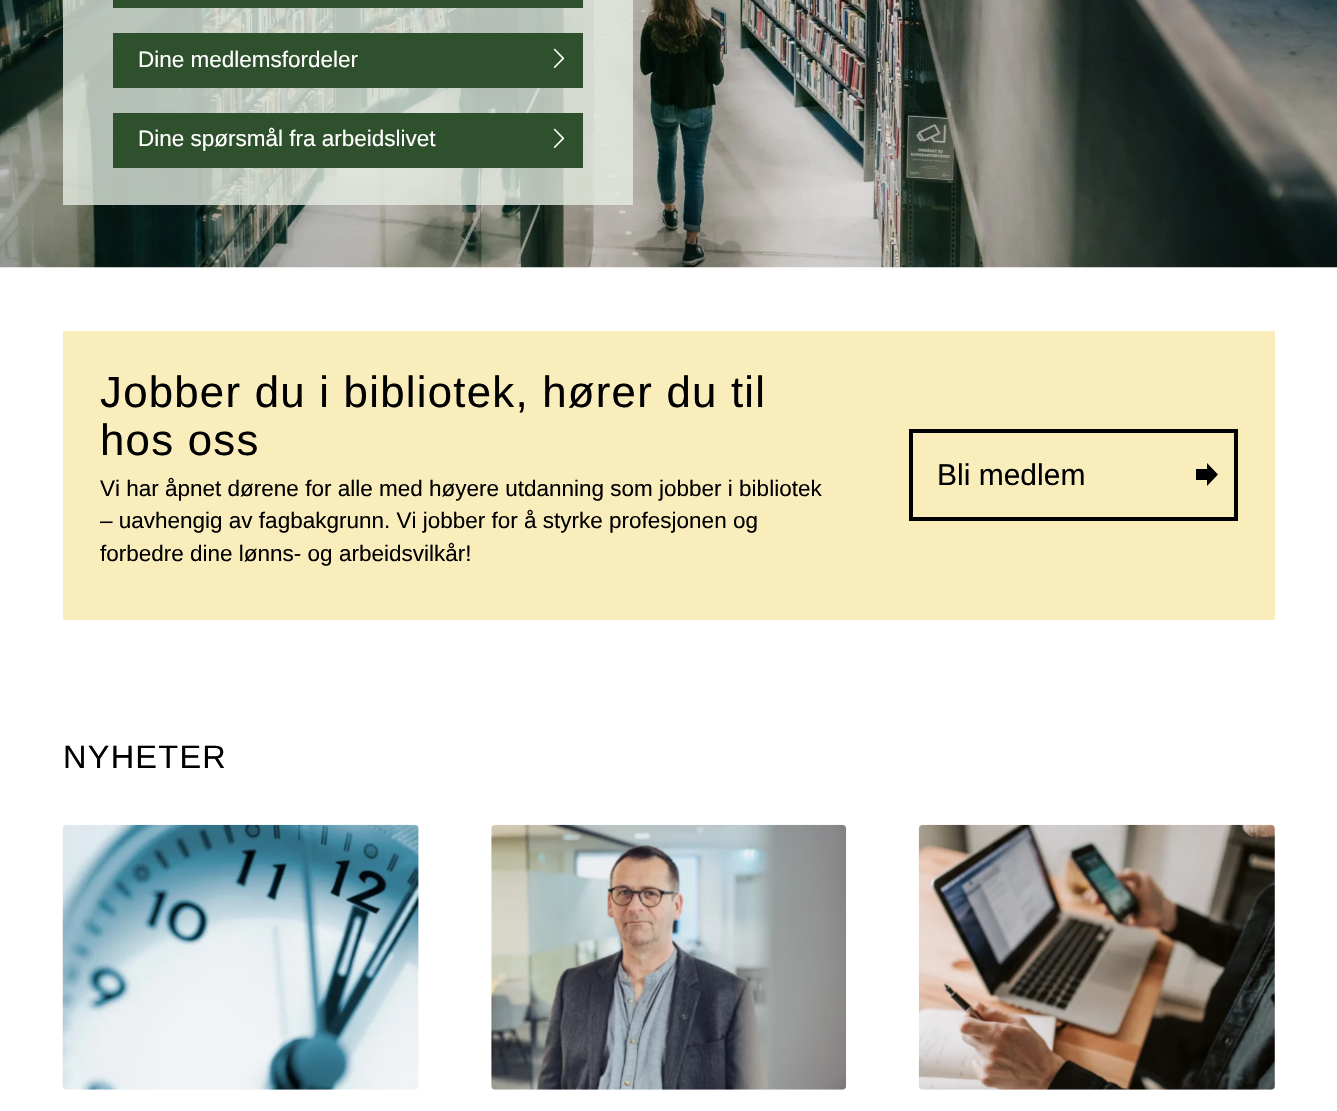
void draw(SkCanvas* canvas) {
    SkPaint paint;
    paint.setAntiAlias(true);
    auto spacedText = [&](const char* s, float x, float y, const SkFont& font, const SkPaint& ink, float letter, float word) {
        std::vector<SkGlyphID> glyphs(font.countText(s, strlen(s), SkTextEncoding::kUTF8));
        std::vector<float> xs(glyphs.size());
        font.textToGlyphs(s, strlen(s), SkTextEncoding::kUTF8, glyphs);
        font.getXPos(glyphs, xs, x);
        float extra = 0;
        for (size_t i = 0; i < glyphs.size(); i++) {
            xs[i] += extra;
            extra += letter + word * (glyphs[i] == font.unicharToGlyph(' '));
        }
        canvas->drawTextBlob(SkTextBlob::MakeFromPosHGlyphs(glyphs, xs, y, font), 0, 0, ink);
    };
    canvas->clear(0xFFFFFFFF);
    canvas->drawImageRect(SkImages::DeferredFromEncodedData(SkData::MakeFromFileName("img1.png")), SkRect::MakeXYWH(0, 0, 1337, 268), SkSamplingOptions());
    paint.setColor(0xC7E6EDE3);
    canvas->drawRect(SkRect::MakeXYWH(63, 0, 570, 205), paint);
    paint.setColor(0xFF2F502C);
    canvas->drawRect(SkRect::MakeXYWH(113, 0, 470, 8), paint);
    canvas->drawRect(SkRect::MakeXYWH(113, 33, 470, 55), paint);
    SkFont font1(fontMgr->matchFamilyStyle("Liberation Sans", SkFontStyle::Normal()), 22.5f);
    font1.setSubpixel(true);
    paint.setColor(0xFFFFFFFF);
    canvas->drawString("Dine medlemsfordeler", 138, 67, font1, paint);
    canvas->drawImageRect(SkImages::DeferredFromEncodedData(SkData::MakeFromFileName("img2.png")), SkRect::MakeXYWH(553, 48, 12, 20), SkSamplingOptions());
    paint.setColor(0xFF2F502C);
    canvas->drawRect(SkRect::MakeXYWH(113, 113, 470, 55), paint);
    paint.setColor(0xFFFFFFFF);
    canvas->drawString("Dine spørsmål fra arbeidslivet", 138, 146, font1, paint);
    canvas->drawImageRect(SkImages::DeferredFromEncodedData(SkData::MakeFromFileName("img2.png")), SkRect::MakeXYWH(553, 128, 12, 20), SkSamplingOptions());
    paint.setColor(0xFFFAEDBC);
    canvas->drawRect(SkRect::MakeXYWH(63, 331, 1212, 289), paint);
    SkFont font2(fontMgr->matchFamilyStyle("Liberation Sans", SkFontStyle::Normal()), 43.75f);
    font2.setSubpixel(true);
    paint.setColor(0xFF000000);
    spacedText("Jobber du i bibliotek, hører du til", 100, 407, font2, paint, 1.25f, 0);
    spacedText("hos oss", 100, 455, font2, paint, 1.25f, 0);
    canvas->drawString("Vi har åpnet dørene for alle med høyere utdanning som jobber i bibliotek", 100, 496, font1, paint);
    canvas->drawString("– uavhengig av fagbakgrunn. Vi jobber for å styrke profesjonen og", 100, 528, font1, paint);
    canvas->drawString("forbedre dine lønns- og arbeidsvilkår!", 100, 561, font1, paint);
    paint.setStyle(SkPaint::kStroke_Style);
    paint.setStrokeWidth(4);
    canvas->drawRect(SkRect::MakeXYWH(911, 431, 325, 88), paint);
    SkFont font3(fontMgr->matchFamilyStyle("Liberation Sans", SkFontStyle::Normal()), 30);
    font3.setSubpixel(true);
    paint.setStyle(SkPaint::kFill_Style);
    canvas->drawString("Bli medlem", 937, 485, font3, paint);
    canvas->drawPath(SkPathBuilder().moveTo(1207, 463).lineTo(1218, 474.5f).lineTo(1207, 486).lineTo(1207, 480).lineTo(1196, 480).lineTo(1196, 469).lineTo(1207, 469).close().detach(), paint);
    SkFont font4(fontMgr->matchFamilyStyle("Liberation Sans", SkFontStyle::Normal()), 32.5f);
    font4.setSubpixel(true);
    spacedText("NYHETER", 63, 768, font4, paint, 1.25f, 0);
    canvas->drawImageRect(SkImages::DeferredFromEncodedData(SkData::MakeFromFileName("img3.png")), SkRect::MakeXYWH(62, 824, 357, 266), SkSamplingOptions());
    canvas->drawImageRect(SkImages::DeferredFromEncodedData(SkData::MakeFromFileName("img4.png")), SkRect::MakeXYWH(491, 824, 356, 266), SkSamplingOptions());
    canvas->drawImageRect(SkImages::DeferredFromEncodedData(SkData::MakeFromFileName("img5.png")), SkRect::MakeXYWH(918, 824, 357, 266), SkSamplingOptions());
}
